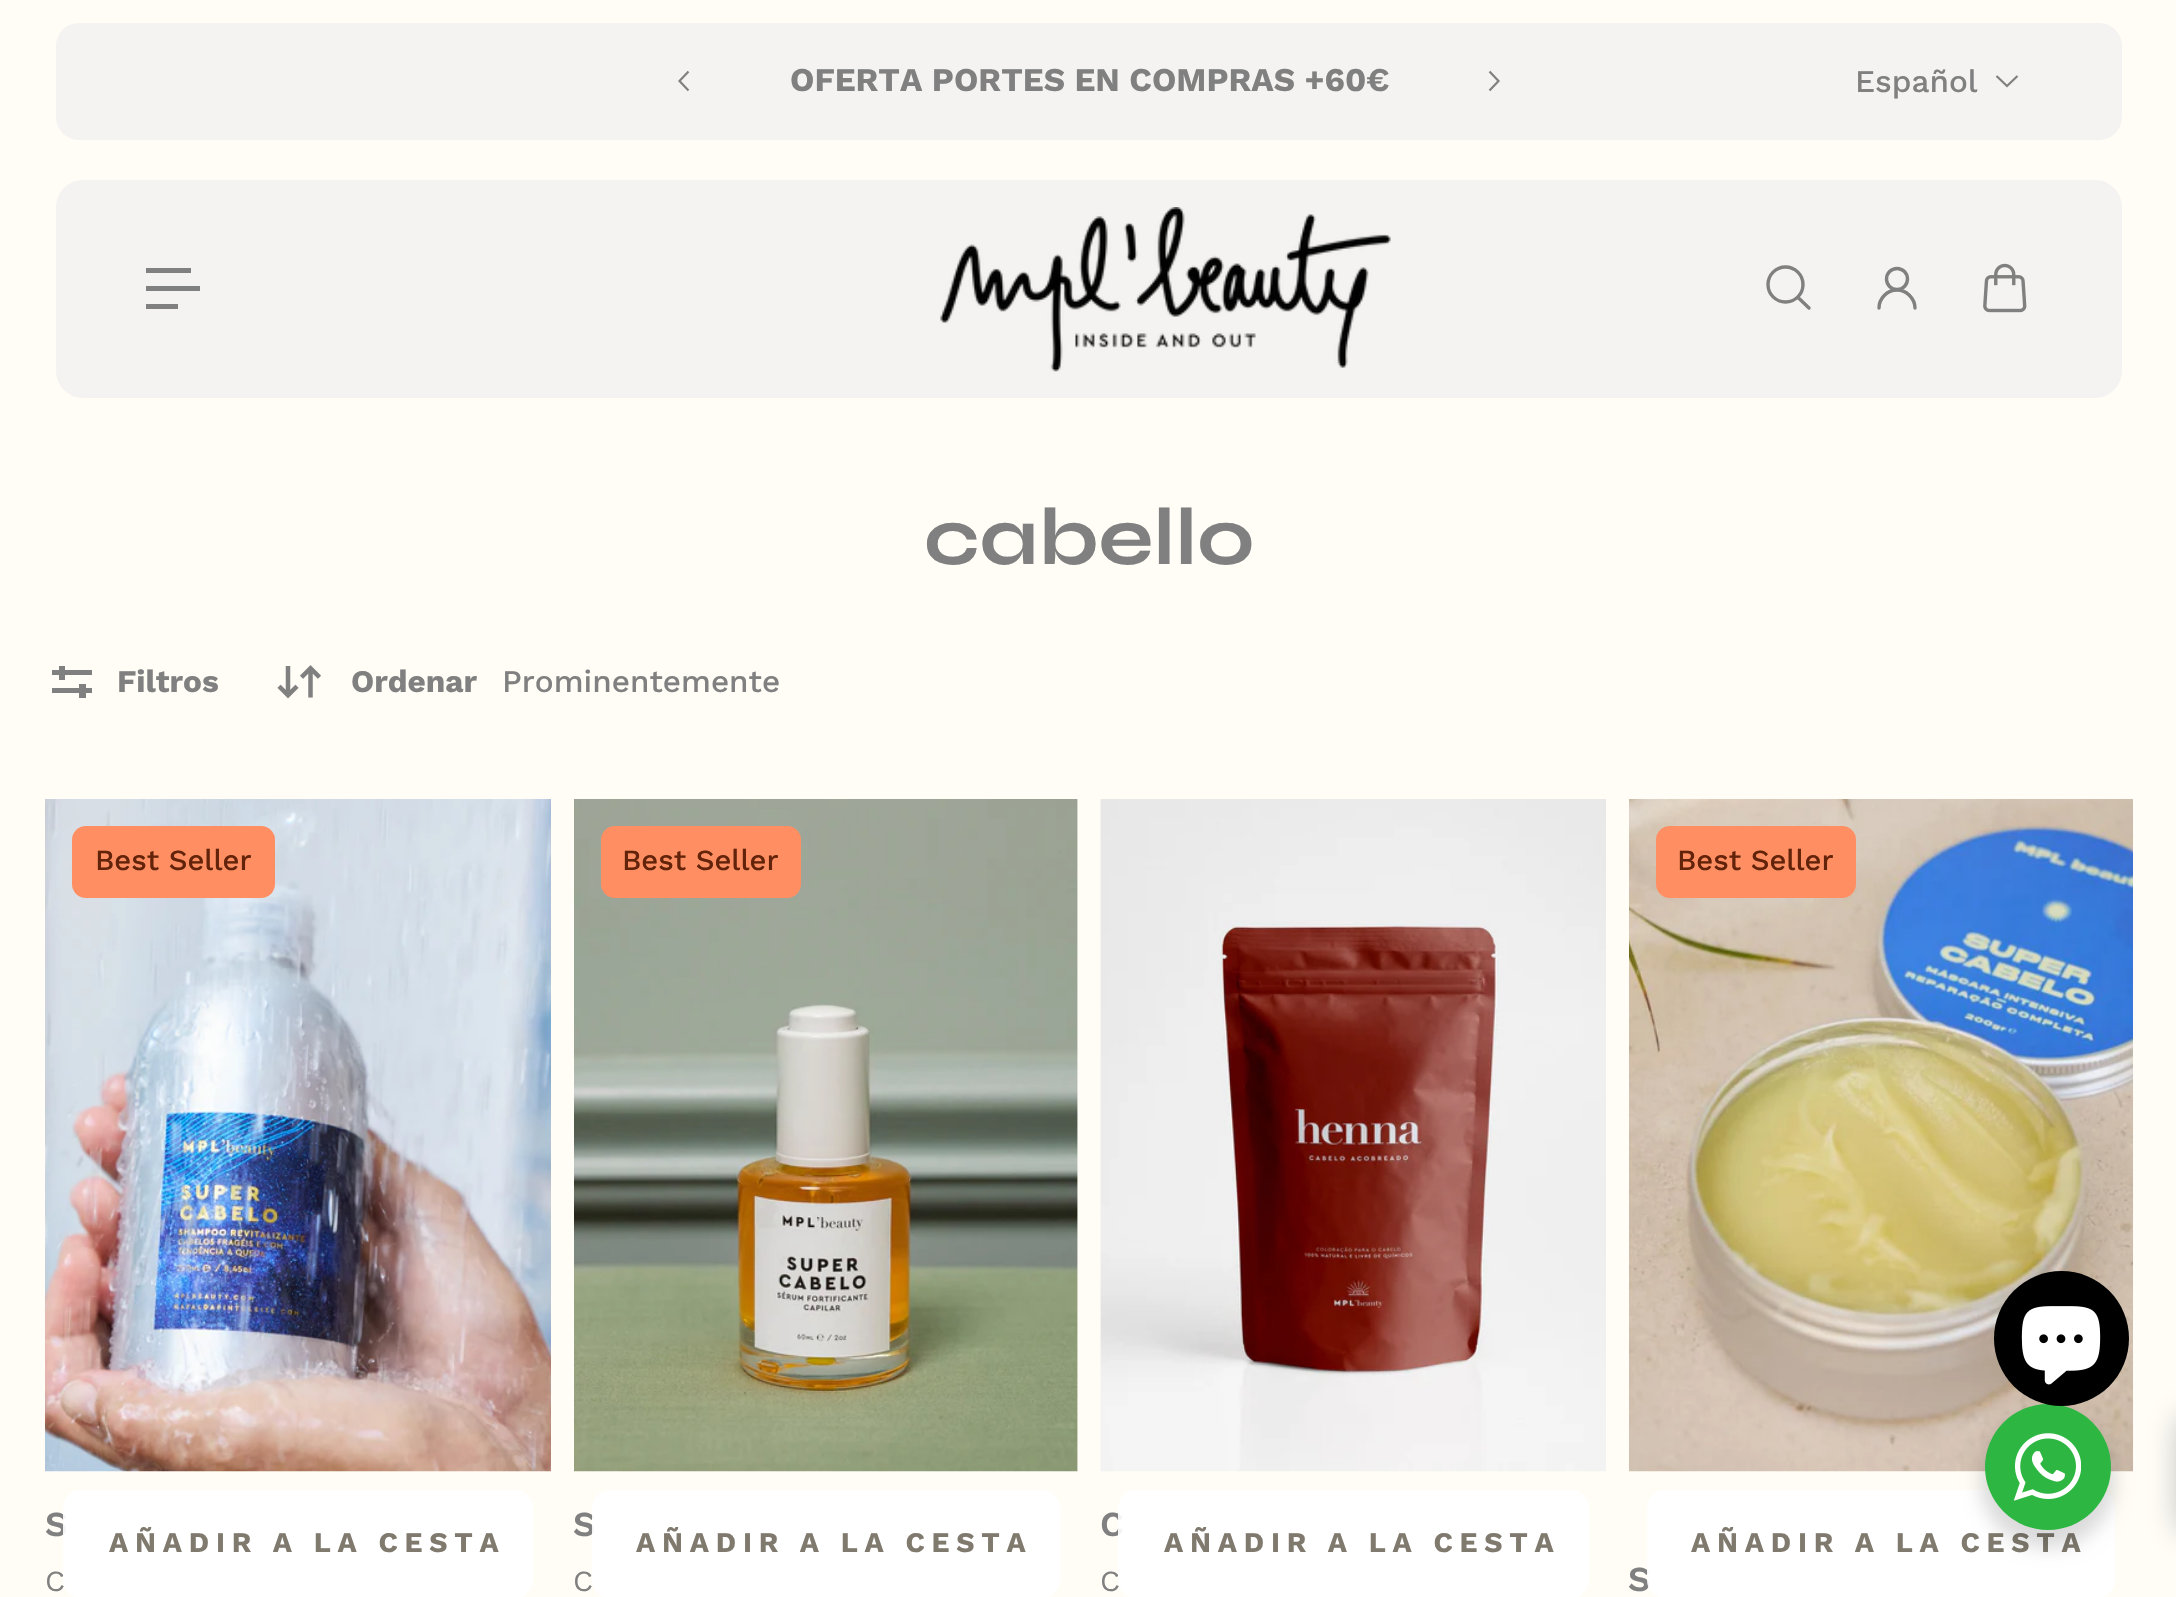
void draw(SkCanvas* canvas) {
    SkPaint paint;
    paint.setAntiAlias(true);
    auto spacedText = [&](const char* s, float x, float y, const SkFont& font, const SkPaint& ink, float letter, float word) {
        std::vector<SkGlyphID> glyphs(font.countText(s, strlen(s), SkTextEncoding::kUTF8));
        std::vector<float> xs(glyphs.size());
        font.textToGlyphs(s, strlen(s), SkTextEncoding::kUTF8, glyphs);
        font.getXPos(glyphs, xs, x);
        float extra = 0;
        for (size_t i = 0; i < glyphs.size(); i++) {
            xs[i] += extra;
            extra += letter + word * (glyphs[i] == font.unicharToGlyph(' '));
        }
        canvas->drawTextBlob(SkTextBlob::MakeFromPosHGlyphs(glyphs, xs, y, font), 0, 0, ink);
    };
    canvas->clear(0xFFFFFDF6);
    paint.setColor(0xFFF4F3F1);
    canvas->drawRoundRect(SkRect::MakeXYWH(56, 23, 2066, 117), 23, 23, paint);
    paint.setStyle(SkPaint::kStroke_Style);
    paint.setStrokeWidth(2.2f);
    paint.setColor(0xFF808080);
    canvas->drawPath(SkPathBuilder().moveTo(688.5f, 71.5f).lineTo(679.5f, 81).lineTo(688.5f, 90.5f).detach(), paint);
    SkFont font1(fontMgr->matchFamilyStyle("Work Sans", SkFontStyle::Bold()), 33.1f);
    font1.setSubpixel(true);
    paint.setStyle(SkPaint::kFill_Style);
    canvas->drawString("OFERTA PORTES EN COMPRAS +60€", 790, 91, font1, paint);
    paint.setStyle(SkPaint::kStroke_Style);
    canvas->drawPath(SkPathBuilder().moveTo(1489.5f, 71.5f).lineTo(1498.5f, 81).lineTo(1489.5f, 90.5f).detach(), paint);
    SkFont font2(fontMgr->matchFamilyStyle("Work Sans", SkFontStyle(500, SkFontStyle::kNormal_Width, SkFontStyle::kUpright_Slant)), 31.5f);
    font2.setSubpixel(true);
    paint.setStyle(SkPaint::kFill_Style);
    canvas->drawString("Español", 1855, 92, font2, paint);
    paint.setStyle(SkPaint::kStroke_Style);
    canvas->drawPath(SkPathBuilder().moveTo(2017.5f, 76).lineTo(2007, 86).lineTo(1996.5f, 76).detach(), paint);
    paint.setStyle(SkPaint::kFill_Style);
    paint.setColor(0xFFF4F3F1);
    canvas->drawRoundRect(SkRect::MakeXYWH(56, 180, 2066, 218), 27, 27, paint);
    paint.setColor(0xFF808080);
    canvas->drawRect(SkRect::MakeXYWH(146, 268, 45, 5), paint);
    canvas->drawRect(SkRect::MakeXYWH(146, 286, 54, 5), paint);
    canvas->drawRect(SkRect::MakeXYWH(146, 304, 32, 5), paint);
    canvas->drawImageRect(SkImages::DeferredFromEncodedData(SkData::MakeFromFileName("img1.png")), SkRect::MakeXYWH(940, 207, 451, 165), SkSamplingOptions());
    paint.setStyle(SkPaint::kStroke_Style);
    paint.setStrokeWidth(3.4f);
    canvas->drawCircle(1785.5f, 284.5f, 17.5f, paint);
    paint.setStrokeCap(SkPaint::kRound_Cap);
    paint.setStrokeJoin(SkPaint::kRound_Join);
    canvas->drawPath(SkPathBuilder().moveTo(1798, 297.5f).lineTo(1809, 308).detach(), paint);
    paint.setStrokeCap(SkPaint::kButt_Cap);
    paint.setStrokeJoin(SkPaint::kMiter_Join);
    canvas->drawCircle(1897, 279, 10.5f, paint);
    paint.setStrokeCap(SkPaint::kRound_Cap);
    paint.setStrokeJoin(SkPaint::kRound_Join);
    canvas->drawPath(SkPathBuilder().moveTo(1915, 308).cubicTo(1915, 298.5f, 1906.5f, 290, 1897, 290).cubicTo(1887, 290, 1879, 298.5f, 1879, 308).detach(), paint);
    canvas->drawImageRect(SkImages::DeferredFromEncodedData(SkData::MakeFromFileName("img2.png")), SkRect::MakeXYWH(1983, 263, 44, 50), SkSamplingOptions());
    SkFont font3(fontMgr->matchFamilyStyle("Syne", SkFontStyle::Bold()), 81);
    font3.setSubpixel(true);
    paint.setStyle(SkPaint::kFill_Style);
    canvas->drawString("cabello", 924, 564, font3, paint);
    canvas->drawRect(SkRect::MakeXYWH(52, 670, 40, 5), paint);
    canvas->drawRect(SkRect::MakeXYWH(52, 688, 40, 5), paint);
    canvas->drawRect(SkRect::MakeXYWH(59, 666, 6, 14), paint);
    canvas->drawRect(SkRect::MakeXYWH(79, 684, 7, 14), paint);
    SkFont font4(fontMgr->matchFamilyStyle("Work Sans", SkFontStyle::Bold()), 31.5f);
    font4.setSubpixel(true);
    canvas->drawString("Filtros", 117, 692, font4, paint);
    canvas->drawImageRect(SkImages::DeferredFromEncodedData(SkData::MakeFromFileName("img3.png")), SkRect::MakeXYWH(277, 665, 44, 34), SkSamplingOptions());
    canvas->drawString("Ordenar", 351, 692, font4, paint);
    canvas->drawString("Prominentemente", 502, 692, font2, paint);
    SkFont font5(fontMgr->matchFamilyStyle("Work Sans", SkFontStyle(600, SkFontStyle::kNormal_Width, SkFontStyle::kUpright_Slant)), 35);
    font5.setSubpixel(true);
    canvas->drawString("S", 45, 1536, font5, paint);
    SkFont font6(fontMgr->matchFamilyStyle("Work Sans", SkFontStyle::Normal()), 29.25f);
    font6.setSubpixel(true);
    canvas->drawString("C", 45, 1591, font6, paint);
    canvas->drawImageRect(SkImages::DeferredFromEncodedData(SkData::MakeFromFileName("img4.png")), SkRect::MakeXYWH(45, 799, 506, 673), SkSamplingOptions());
    paint.setColor(0xFFFF8F62);
    canvas->drawRoundRect(SkRect::MakeXYWH(72, 826, 203, 72), 14, 14, paint);
    SkFont font7(fontMgr->matchFamilyStyle("Work Sans", SkFontStyle(500, SkFontStyle::kNormal_Width, SkFontStyle::kUpright_Slant)), 29.25f);
    font7.setSubpixel(true);
    paint.setColor(0xFF63230A);
    canvas->drawString("Best Seller", 95, 870, font7, paint);
    paint.setColor(0xE6FFFFFF);
    canvas->drawRoundRect(SkRect::MakeXYWH(63, 1490, 470, 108), 18, 18, paint);
    SkFont font8(fontMgr->matchFamilyStyle("Work Sans", SkFontStyle::Bold()), 28.4f);
    font8.setSubpixel(true);
    paint.setColor(0xFF807A6E);
    spacedText("AÑADIR A LA CESTA", 109, 1552, font8, paint, 6.75f, 0);
    paint.setColor(0xFF808080);
    canvas->drawString("S", 573, 1536, font5, paint);
    canvas->drawString("C", 573, 1591, font6, paint);
    canvas->drawImageRect(SkImages::DeferredFromEncodedData(SkData::MakeFromFileName("img5.png")), SkRect::MakeXYWH(574, 799, 504, 673), SkSamplingOptions());
    paint.setColor(0xFFFF8F62);
    canvas->drawRoundRect(SkRect::MakeXYWH(601, 826, 200, 72), 14, 14, paint);
    paint.setColor(0xFF63230A);
    canvas->drawString("Best Seller", 622, 870, font7, paint);
    paint.setColor(0xE6FFFFFF);
    canvas->drawRoundRect(SkRect::MakeXYWH(592, 1490, 468, 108), 18, 18, paint);
    paint.setColor(0xFF807A6E);
    spacedText("AÑADIR A LA CESTA", 636, 1552, font8, paint, 6.75f, 0);
    paint.setColor(0xFF808080);
    canvas->drawString("C", 1100, 1536, font5, paint);
    canvas->drawString("C", 1100, 1591, font6, paint);
    canvas->drawImageRect(SkImages::DeferredFromEncodedData(SkData::MakeFromFileName("img6.png")), SkRect::MakeXYWH(1100, 799, 506, 673), SkSamplingOptions());
    paint.setColor(0xE6FFFFFF);
    canvas->drawRoundRect(SkRect::MakeXYWH(1118, 1490, 471, 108), 18, 18, paint);
    paint.setColor(0xFF807A6E);
    spacedText("AÑADIR A LA CESTA", 1164, 1552, font8, paint, 6.75f, 0);
    canvas->drawImageRect(SkImages::DeferredFromEncodedData(SkData::MakeFromFileName("img7.png")), SkRect::MakeXYWH(1629, 799, 504, 673), SkSamplingOptions());
    paint.setColor(0xFFFF8F62);
    canvas->drawRoundRect(SkRect::MakeXYWH(1656, 826, 200, 72), 14, 14, paint);
    paint.setColor(0xFF63230A);
    canvas->drawString("Best Seller", 1677, 870, font7, paint);
    paint.setColor(0xFF808080);
    canvas->drawString("S", 1628, 1591, font5, paint);
    paint.setColor(0xE6FFFFFF);
    canvas->drawRoundRect(SkRect::MakeXYWH(1647, 1490, 468, 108), 18, 18, paint);
    paint.setColor(0xFF807A6E);
    spacedText("AÑADIR A LA CESTA", 1691, 1552, font8, paint, 6.75f, 0);
    paint.setColor(0x24000000);
    paint.setMaskFilter(SkMaskFilter::MakeBlur(kNormal_SkBlurStyle, 9));
    canvas->drawRoundRect(SkRect::MakeXYWH(1980, 1413, 135, 135), 67.5f, 67.5f, paint);
    paint.setMaskFilter(nullptr);
    paint.setColor(0xFF2DB742);
    canvas->drawCircle(2048, 1467, 63, paint);
    paint.setColor(0xFF000000);
    canvas->drawCircle(2061.5f, 1338.5f, 67.5f, paint);
    canvas->drawImageRect(SkImages::DeferredFromEncodedData(SkData::MakeFromFileName("img8.png")), SkRect::MakeXYWH(2021, 1306, 80, 79), SkSamplingOptions());
    canvas->drawImageRect(SkImages::DeferredFromEncodedData(SkData::MakeFromFileName("img9.png")), SkRect::MakeXYWH(2014, 1433, 67, 68), SkSamplingOptions());
    paint.setColor(0x80757575);
    paint.setMaskFilter(SkMaskFilter::MakeBlur(kNormal_SkBlurStyle, 16));
    canvas->drawRect(SkRect::MakeXYWH(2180, 1418, 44, 112), paint);
    paint.setMaskFilter(nullptr);
}
